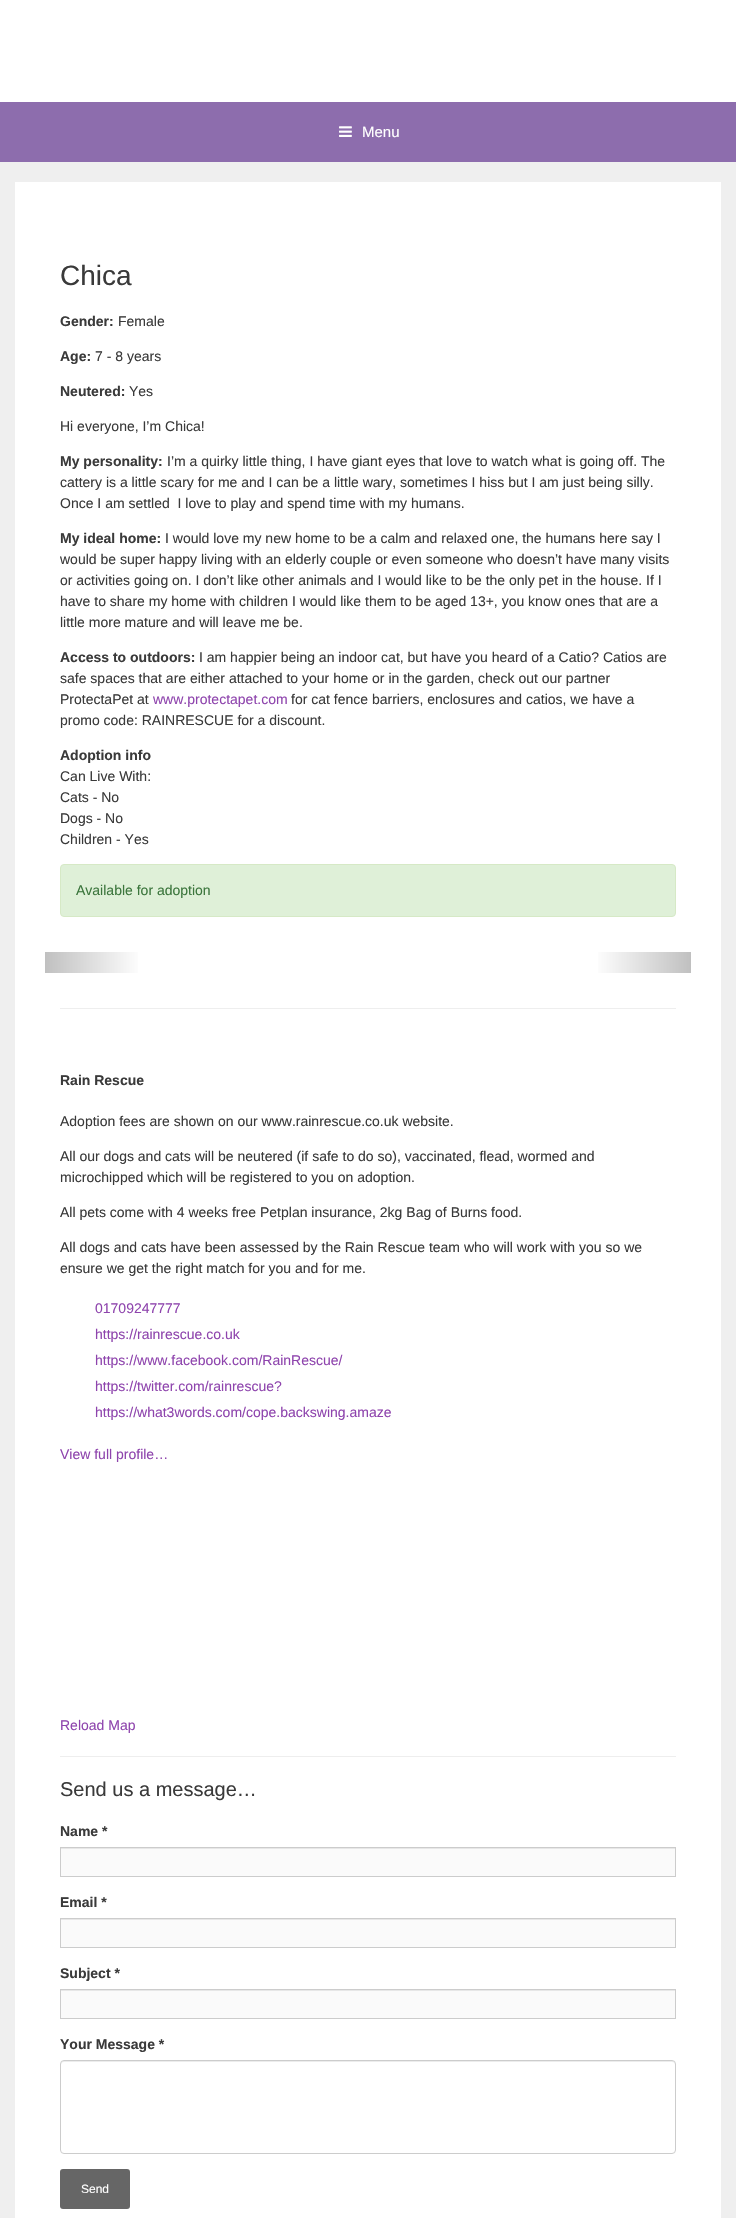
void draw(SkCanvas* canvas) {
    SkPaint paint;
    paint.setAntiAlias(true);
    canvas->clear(0xFFEFEFEF);
    paint.setColor(0xFFFFFFFF);
    canvas->drawRect(SkRect::MakeXYWH(0, 0, 736, 102), paint);
    paint.setColor(0xFF8D6DAD);
    canvas->drawRect(SkRect::MakeXYWH(0, 102, 736, 60), paint);
    canvas->drawImageRect(SkImages::DeferredFromEncodedData(SkData::MakeFromFileName("img1.png")), SkRect::MakeXYWH(339, 126, 13, 11), SkSamplingOptions());
    SkFont font1(fontMgr->matchFamilyStyle("Liberation Sans", SkFontStyle::Normal()), 15);
    font1.setSubpixel(true);
    paint.setColor(0xFFFFFFFF);
    canvas->drawString("Menu", 362, 137, font1, paint);
    canvas->drawRect(SkRect::MakeXYWH(15, 182, 706, 2036), paint);
    SkFont font2(fontMgr->matchFamilyStyle("Liberation Sans", SkFontStyle::Normal()), 28);
    font2.setSubpixel(true);
    paint.setColor(0xFF3A3A3A);
    canvas->drawString("Chica", 60, 285, font2, paint);
    SkFont font3(fontMgr->matchFamilyStyle("Liberation Sans", SkFontStyle::Bold()), 14);
    font3.setSubpixel(true);
    canvas->drawString("Gender:", 60, 326, font3, paint);
    SkFont font4(fontMgr->matchFamilyStyle("Liberation Sans", SkFontStyle::Normal()), 14);
    font4.setSubpixel(true);
    canvas->drawString("Female", 118, 326, font4, paint);
    canvas->drawString("Age:", 60, 361, font3, paint);
    canvas->drawString("7 - 8 years", 95, 361, font4, paint);
    canvas->drawString("Neutered:", 60, 396, font3, paint);
    canvas->drawString("Yes", 129, 396, font4, paint);
    canvas->drawString("Hi everyone, I’m Chica!", 60, 431, font4, paint);
    canvas->drawString("My personality:", 60, 466, font3, paint);
    canvas->drawString("I’m a quirky little thing, I have giant eyes that love to watch what is going off. The", 167, 466, font4, paint);
    canvas->drawString("cattery is a little scary for me and I can be a little wary, sometimes I hiss but I am just being silly.", 60, 487, font4, paint);
    canvas->drawString("Once I am settled  I love to play and spend time with my humans.", 60, 508, font4, paint);
    canvas->drawString("My ideal home:", 60, 543, font3, paint);
    canvas->drawString("I would love my new home to be a calm and relaxed one, the humans here say I", 165, 543, font4, paint);
    canvas->drawString("would be super happy living with an elderly couple or even someone who doesn’t have many visits", 60, 564, font4, paint);
    canvas->drawString("or activities going on. I don’t like other animals and I would like to be the only pet in the house. If I", 60, 585, font4, paint);
    canvas->drawString("have to share my home with children I would like them to be aged 13+, you know ones that are a", 60, 606, font4, paint);
    canvas->drawString("little more mature and will leave me be.", 60, 627, font4, paint);
    canvas->drawString("Access to outdoors:", 60, 662, font3, paint);
    canvas->drawString("I am happier being an indoor cat, but have you heard of a Catio? Catios are", 199, 662, font4, paint);
    canvas->drawString("safe spaces that are either attached to your home or in the garden, check out our partner", 60, 683, font4, paint);
    canvas->drawString("ProtectaPet at", 60, 704, font4, paint);
    paint.setColor(0xFF8E44AD);
    canvas->drawString("www.protectapet.com", 153, 704, font4, paint);
    paint.setColor(0xFF3A3A3A);
    canvas->drawString("for cat fence barriers, enclosures and catios, we have a", 291, 704, font4, paint);
    canvas->drawString("promo code: RAINRESCUE for a discount.", 60, 725, font4, paint);
    canvas->drawString("Adoption info", 60, 760, font3, paint);
    canvas->drawString("Can Live With:", 60, 781, font4, paint);
    canvas->drawString("Cats - No", 60, 802, font4, paint);
    canvas->drawString("Dogs - No", 60, 823, font4, paint);
    canvas->drawString("Children - Yes", 60, 844, font4, paint);
    paint.setColor(0xFFDFF0D8);
    canvas->drawRoundRect(SkRect::MakeXYWH(60.5f, 864.5f, 615, 52), 3.5f, 3.5f, paint);
    paint.setStyle(SkPaint::kStroke_Style);
    paint.setStrokeWidth(1);
    paint.setColor(0xFFD6E9C6);
    canvas->drawRoundRect(SkRect::MakeXYWH(60.5f, 864.5f, 615, 52), 3.5f, 3.5f, paint);
    paint.setStyle(SkPaint::kFill_Style);
    paint.setColor(0xFF3C763D);
    canvas->drawString("Available for adoption", 76, 895, font4, paint);
    {
        const SkColor colors[] = {0xFFC0C0C0, 0xFFFFFFFF};
        const float stops[] = {0, 1};
        const SkPoint ends[] = {{45, 963}, {142, 963}};
        paint.setShader(SkGradientShader::MakeLinear(ends, colors, stops, 2, SkTileMode::kClamp));
        paint.setAlpha(255);
    }
    canvas->drawRect(SkRect::MakeXYWH(45, 952, 93, 21), paint);
    {
        const SkColor colors[] = {0xFFFFFFFF, 0xFFC0C0C0};
        const float stops[] = {0, 1};
        const SkPoint ends[] = {{594, 963}, {691, 963}};
        paint.setShader(SkGradientShader::MakeLinear(ends, colors, stops, 2, SkTileMode::kClamp));
        paint.setAlpha(255);
    }
    canvas->drawRect(SkRect::MakeXYWH(598, 952, 93, 21), paint);
    paint.setShader(nullptr);
    paint.setColor(0xFFEEEEEE);
    canvas->drawRect(SkRect::MakeXYWH(60, 1008, 616, 1), paint);
    paint.setColor(0xFF3A3A3A);
    canvas->drawString("Rain Rescue", 60, 1085, font3, paint);
    canvas->drawString("Adoption fees are shown on our www.rainrescue.co.uk website.", 60, 1126, font4, paint);
    canvas->drawString("All our dogs and cats will be neutered (if safe to do so), vaccinated, flead, wormed and", 60, 1161, font4, paint);
    canvas->drawString("microchipped which will be registered to you on adoption.", 60, 1182, font4, paint);
    canvas->drawString("All pets come with 4 weeks free Petplan insurance, 2kg Bag of Burns food.", 60, 1217, font4, paint);
    canvas->drawString("All dogs and cats have been assessed by the Rain Rescue team who will work with you so we", 60, 1252, font4, paint);
    canvas->drawString("ensure we get the right match for you and for me.", 60, 1273, font4, paint);
    paint.setColor(0xFF8E44AD);
    canvas->drawString("01709247777", 95, 1313, font4, paint);
    canvas->drawString("https://rainrescue.co.uk", 95, 1339, font4, paint);
    canvas->drawString("https://www.facebook.com/RainRescue/", 95, 1365, font4, paint);
    canvas->drawString("https://twitter.com/rainrescue?", 95, 1391, font4, paint);
    canvas->drawString("https://what3words.com/cope.backswing.amaze", 95, 1417, font4, paint);
    canvas->drawString("View full profile…", 60, 1459, font4, paint);
    canvas->drawString("Reload Map", 60, 1730, font4, paint);
    paint.setColor(0xFFEEEEEE);
    canvas->drawRect(SkRect::MakeXYWH(60, 1756, 616, 1), paint);
    SkFont font5(fontMgr->matchFamilyStyle("Liberation Sans", SkFontStyle::Normal()), 20);
    font5.setSubpixel(true);
    paint.setColor(0xFF3A3A3A);
    canvas->drawString("Send us a message…", 60, 1796, font5, paint);
    canvas->drawString("Name *", 60, 1836, font3, paint);
    paint.setColor(0xFFFAFAFA);
    canvas->drawRect(SkRect::MakeXYWH(61, 1849, 614, 27), paint);
    paint.setColor(0xFFE7E7E7);
    canvas->drawRect(SkRect::MakeXYWH(61, 1848, 614, 1), paint);
    paint.setStyle(SkPaint::kStroke_Style);
    paint.setColor(0xFFCCCCCC);
    canvas->drawRect(SkRect::MakeXYWH(60.5f, 1847.5f, 615, 29), paint);
    paint.setStyle(SkPaint::kFill_Style);
    paint.setColor(0xFF3A3A3A);
    canvas->drawString("Email *", 60, 1907, font3, paint);
    paint.setColor(0xFFFAFAFA);
    canvas->drawRect(SkRect::MakeXYWH(61, 1920, 614, 27), paint);
    paint.setColor(0xFFE7E7E7);
    canvas->drawRect(SkRect::MakeXYWH(61, 1919, 614, 1), paint);
    paint.setStyle(SkPaint::kStroke_Style);
    paint.setColor(0xFFCCCCCC);
    canvas->drawRect(SkRect::MakeXYWH(60.5f, 1918.5f, 615, 29), paint);
    paint.setStyle(SkPaint::kFill_Style);
    paint.setColor(0xFF3A3A3A);
    canvas->drawString("Subject *", 60, 1978, font3, paint);
    paint.setColor(0xFFFAFAFA);
    canvas->drawRect(SkRect::MakeXYWH(61, 1991, 614, 27), paint);
    paint.setColor(0xFFE7E7E7);
    canvas->drawRect(SkRect::MakeXYWH(61, 1990, 614, 1), paint);
    paint.setStyle(SkPaint::kStroke_Style);
    paint.setColor(0xFFCCCCCC);
    canvas->drawRect(SkRect::MakeXYWH(60.5f, 1989.5f, 615, 29), paint);
    paint.setStyle(SkPaint::kFill_Style);
    paint.setColor(0xFF3A3A3A);
    canvas->drawString("Your Message *", 60, 2049, font3, paint);
    paint.setColor(0xFFECECEC);
    canvas->drawPath(SkPathBuilder().moveTo(64, 2062).lineTo(672, 2062).cubicTo(674, 2062, 675, 2063, 675, 2065).lineTo(675, 2064).cubicTo(675, 2062, 674, 2061, 672, 2061).lineTo(64, 2061).cubicTo(62, 2061, 61, 2062, 61, 2064).lineTo(61, 2065).cubicTo(61, 2063, 62, 2062, 64, 2062).close().detach(), paint);
    paint.setStyle(SkPaint::kStroke_Style);
    paint.setColor(0xFFCCCCCC);
    canvas->drawRoundRect(SkRect::MakeXYWH(60.5f, 2060.5f, 615, 93), 3.5f, 3.5f, paint);
    paint.setStyle(SkPaint::kFill_Style);
    paint.setColor(0xFF666666);
    canvas->drawRoundRect(SkRect::MakeXYWH(60, 2169, 70, 40), 3, 3, paint);
    SkFont font6(fontMgr->matchFamilyStyle("Liberation Sans", SkFontStyle::Normal()), 12);
    font6.setSubpixel(true);
    paint.setColor(0xFFFFFFFF);
    canvas->drawString("Send", 81, 2193, font6, paint);
}
